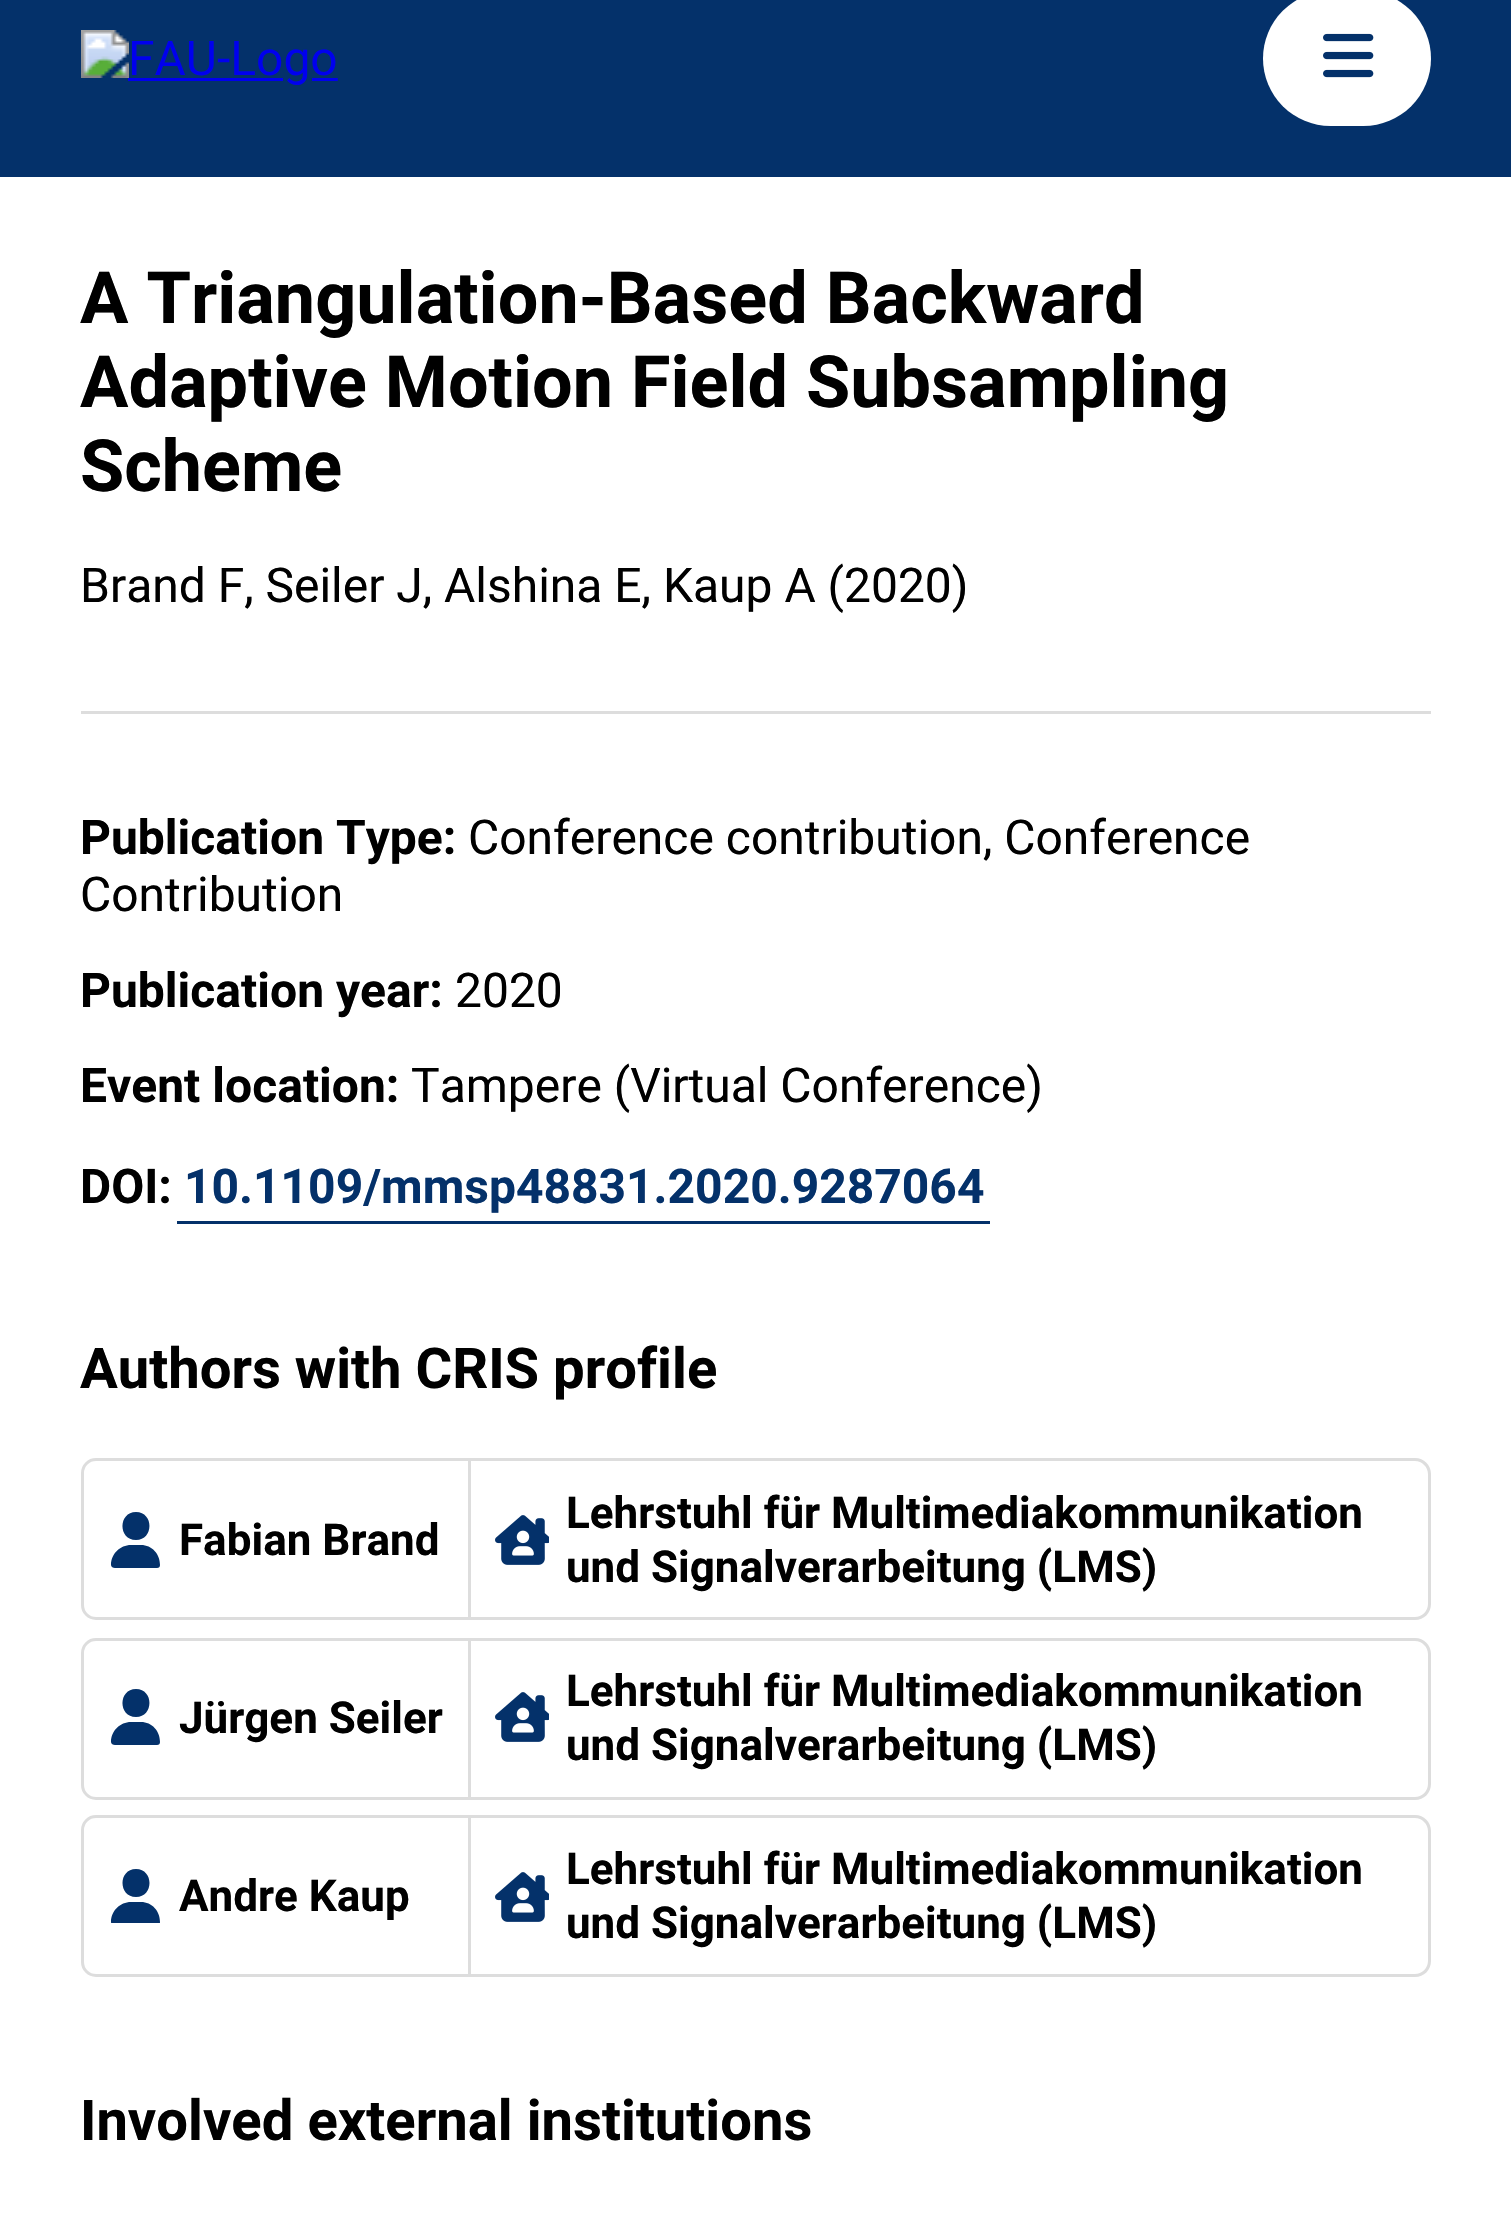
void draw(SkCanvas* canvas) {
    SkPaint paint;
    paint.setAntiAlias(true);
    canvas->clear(0xFFFFFFFF);
    paint.setColor(0xFF04316A);
    canvas->drawRect(SkRect::MakeXYWH(0, 0, 1511, 177), paint);
    canvas->drawImageRect(SkImages::DeferredFromEncodedData(SkData::MakeFromFileName("img1.png")), SkRect::MakeXYWH(81, 30, 257, 55), SkSamplingOptions());
    paint.setColor(0xFFFFFFFF);
    canvas->drawRoundRect(SkRect::MakeXYWH(1263, -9, 168, 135), 67.5f, 67.5f, paint);
    canvas->drawImageRect(SkImages::DeferredFromEncodedData(SkData::MakeFromFileName("img2.png")), SkRect::MakeXYWH(1323, 33, 51, 45), SkSamplingOptions());
    SkFont font1(fontMgr->matchFamilyStyle("Roboto", SkFontStyle::Bold()), 72);
    font1.setSubpixel(true);
    paint.setColor(0xFF000000);
    canvas->drawString("A Triangulation-Based Backward", 80, 323, font1, paint);
    canvas->drawString("Adaptive Motion Field Subsampling", 80, 407, font1, paint);
    canvas->drawString("Scheme", 80, 491, font1, paint);
    SkFont font2(fontMgr->matchFamilyStyle("Roboto", SkFontStyle::Normal()), 48);
    font2.setSubpixel(true);
    canvas->drawString("Brand F, Seiler J, Alshina E, Kaup A (2020)", 80, 602, font2, paint);
    paint.setColor(0xFFDDDDDD);
    canvas->drawRect(SkRect::MakeXYWH(81, 711, 1350, 3), paint);
    SkFont font3(fontMgr->matchFamilyStyle("Roboto", SkFontStyle::Bold()), 48);
    font3.setSubpixel(true);
    paint.setColor(0xFF000000);
    canvas->drawString("Publication Type:", 80, 854, font3, paint);
    canvas->drawString("Conference contribution, Conference", 468, 854, font2, paint);
    canvas->drawString("Contribution", 80, 911, font2, paint);
    canvas->drawString("Publication year:", 80, 1007, font3, paint);
    canvas->drawString("2020", 455, 1007, font2, paint);
    canvas->drawString("Event location:", 80, 1102, font3, paint);
    canvas->drawString("Tampere (Virtual Conference)", 411, 1102, font2, paint);
    canvas->drawString("DOI:", 80, 1203, font3, paint);
    paint.setColor(0xFF04316A);
    canvas->drawString("10.1109/mmsp48831.2020.9287064", 184, 1203, font3, paint);
    canvas->drawRect(SkRect::MakeXYWH(177, 1221, 813, 3), paint);
    SkFont font4(fontMgr->matchFamilyStyle("Roboto", SkFontStyle::Bold()), 56.2f);
    font4.setSubpixel(true);
    paint.setColor(0xFF000000);
    canvas->drawString("Authors with CRIS profile", 80, 1388, font4, paint);
    paint.setStyle(SkPaint::kStroke_Style);
    paint.setStrokeWidth(3);
    paint.setColor(0xFFDDDDDD);
    canvas->drawPath(SkPathBuilder().moveTo(96, 1459.5f).lineTo(469.5f, 1459.5f).lineTo(469.5f, 1618.5f).lineTo(96, 1618.5f).cubicTo(88.5f, 1618.5f, 82.5f, 1612.5f, 82.5f, 1605).lineTo(82.5f, 1473).cubicTo(82.5f, 1465.5f, 88.5f, 1459.5f, 96, 1459.5f).close().detach(), paint);
    paint.setStyle(SkPaint::kFill_Style);
    paint.setColor(0xFF04316A);
    canvas->drawPath(SkPathBuilder().moveTo(136, 1540).cubicTo(154, 1540, 154, 1512, 136, 1512).cubicTo(118, 1512, 118, 1540, 136, 1540).close().moveTo(131, 1545).cubicTo(120, 1545, 111, 1554, 111, 1565).cubicTo(111, 1567, 113, 1568, 115, 1568).lineTo(157, 1568).cubicTo(159, 1568, 160, 1567, 160, 1565).cubicTo(160, 1554, 152, 1545, 141, 1545).close().detach(), paint);
    SkFont font5(fontMgr->matchFamilyStyle("Roboto", SkFontStyle::Bold()), 44);
    font5.setSubpixel(true);
    paint.setColor(0xFF000000);
    canvas->drawString("Fabian Brand", 179, 1555, font5, paint);
    paint.setColor(0xFFDDDDDD);
    canvas->drawPath(SkPathBuilder(SkPathFillType::kEvenOdd).moveTo(471, 1458).lineTo(1415, 1458).cubicTo(1424, 1458, 1431, 1465, 1431, 1474).lineTo(1431, 1604).cubicTo(1431, 1613, 1424, 1620, 1415, 1620).lineTo(471, 1620).close().moveTo(471, 1461).lineTo(1415, 1461).cubicTo(1422, 1461, 1428, 1467, 1428, 1474).lineTo(1428, 1604).cubicTo(1428, 1611, 1422, 1617, 1415, 1617).lineTo(471, 1617).close().detach(), paint);
    canvas->drawImageRect(SkImages::DeferredFromEncodedData(SkData::MakeFromFileName("img3.png")), SkRect::MakeXYWH(495, 1515, 54, 50), SkSamplingOptions());
    paint.setColor(0xFF000000);
    canvas->drawString("Lehrstuhl für Multimediakommunikation", 566, 1528, font5, paint);
    canvas->drawString("und Signalverarbeitung (LMS)", 566, 1582, font5, paint);
    paint.setStyle(SkPaint::kStroke_Style);
    paint.setColor(0xFFDDDDDD);
    canvas->drawPath(SkPathBuilder().moveTo(96, 1639.5f).lineTo(469.5f, 1639.5f).lineTo(469.5f, 1798.5f).lineTo(96, 1798.5f).cubicTo(88.5f, 1798.5f, 82.5f, 1792.5f, 82.5f, 1785).lineTo(82.5f, 1653).cubicTo(82.5f, 1645.5f, 88.5f, 1639.5f, 96, 1639.5f).close().detach(), paint);
    paint.setStyle(SkPaint::kFill_Style);
    paint.setColor(0xFF04316A);
    canvas->drawPath(SkPathBuilder().moveTo(136, 1717).cubicTo(154, 1717, 154, 1689, 136, 1689).cubicTo(118, 1689, 118, 1717, 136, 1717).close().moveTo(131, 1722).cubicTo(120, 1722, 111, 1731, 111, 1742).cubicTo(111, 1744, 113, 1745, 115, 1745).lineTo(157, 1745).cubicTo(159, 1745, 160, 1744, 160, 1742).cubicTo(160, 1731, 152, 1722, 141, 1722).close().detach(), paint);
    paint.setColor(0xFF000000);
    canvas->drawString("Jürgen Seiler", 179, 1733, font5, paint);
    paint.setColor(0xFFDDDDDD);
    canvas->drawPath(SkPathBuilder(SkPathFillType::kEvenOdd).moveTo(471, 1638).lineTo(1415, 1638).cubicTo(1424, 1638, 1431, 1645, 1431, 1654).lineTo(1431, 1784).cubicTo(1431, 1793, 1424, 1800, 1415, 1800).lineTo(471, 1800).close().moveTo(471, 1641).lineTo(1415, 1641).cubicTo(1422, 1641, 1428, 1647, 1428, 1654).lineTo(1428, 1784).cubicTo(1428, 1791, 1422, 1797, 1415, 1797).lineTo(471, 1797).close().detach(), paint);
    canvas->drawImageRect(SkImages::DeferredFromEncodedData(SkData::MakeFromFileName("img3.png")), SkRect::MakeXYWH(495, 1692, 54, 50), SkSamplingOptions());
    paint.setColor(0xFF000000);
    canvas->drawString("Lehrstuhl für Multimediakommunikation", 566, 1706, font5, paint);
    canvas->drawString("und Signalverarbeitung (LMS)", 566, 1760, font5, paint);
    paint.setStyle(SkPaint::kStroke_Style);
    paint.setColor(0xFFDDDDDD);
    canvas->drawPath(SkPathBuilder().moveTo(96, 1816.5f).lineTo(469.5f, 1816.5f).lineTo(469.5f, 1975.5f).lineTo(96, 1975.5f).cubicTo(88.5f, 1975.5f, 82.5f, 1969.5f, 82.5f, 1962).lineTo(82.5f, 1830).cubicTo(82.5f, 1822.5f, 88.5f, 1816.5f, 96, 1816.5f).close().detach(), paint);
    canvas->save();
    canvas->clipRect(SkRect::MakeXYWH(108, 1869, 54, 54));
    paint.setStyle(SkPaint::kFill_Style);
    paint.setColor(0xFF04316A);
    canvas->drawPath(SkPathBuilder().moveTo(136, 1897).cubicTo(154, 1897, 154, 1869, 136, 1869).cubicTo(118, 1869, 118, 1897, 136, 1897).close().moveTo(131, 1902).cubicTo(120, 1902, 111, 1911, 111, 1922).cubicTo(111, 1924, 113, 1925, 115, 1925).lineTo(157, 1925).cubicTo(159, 1925, 160, 1924, 160, 1922).cubicTo(160, 1911, 152, 1902, 141, 1902).close().detach(), paint);
    canvas->restore();
    paint.setColor(0xFF000000);
    canvas->drawString("Andre Kaup", 179, 1911, font5, paint);
    paint.setColor(0xFFDDDDDD);
    canvas->drawPath(SkPathBuilder(SkPathFillType::kEvenOdd).moveTo(471, 1815).lineTo(1415, 1815).cubicTo(1424, 1815, 1431, 1822, 1431, 1831).lineTo(1431, 1961).cubicTo(1431, 1970, 1424, 1977, 1415, 1977).lineTo(471, 1977).close().moveTo(471, 1818).lineTo(1415, 1818).cubicTo(1422, 1818, 1428, 1824, 1428, 1831).lineTo(1428, 1961).cubicTo(1428, 1968, 1422, 1974, 1415, 1974).lineTo(471, 1974).close().detach(), paint);
    canvas->drawImageRect(SkImages::DeferredFromEncodedData(SkData::MakeFromFileName("img3.png")), SkRect::MakeXYWH(495, 1872, 54, 50), SkSamplingOptions());
    paint.setColor(0xFF000000);
    canvas->drawString("Lehrstuhl für Multimediakommunikation", 566, 1884, font5, paint);
    canvas->drawString("und Signalverarbeitung (LMS)", 566, 1938, font5, paint);
    canvas->drawString("Involved external institutions", 80, 2140, font4, paint);
}
